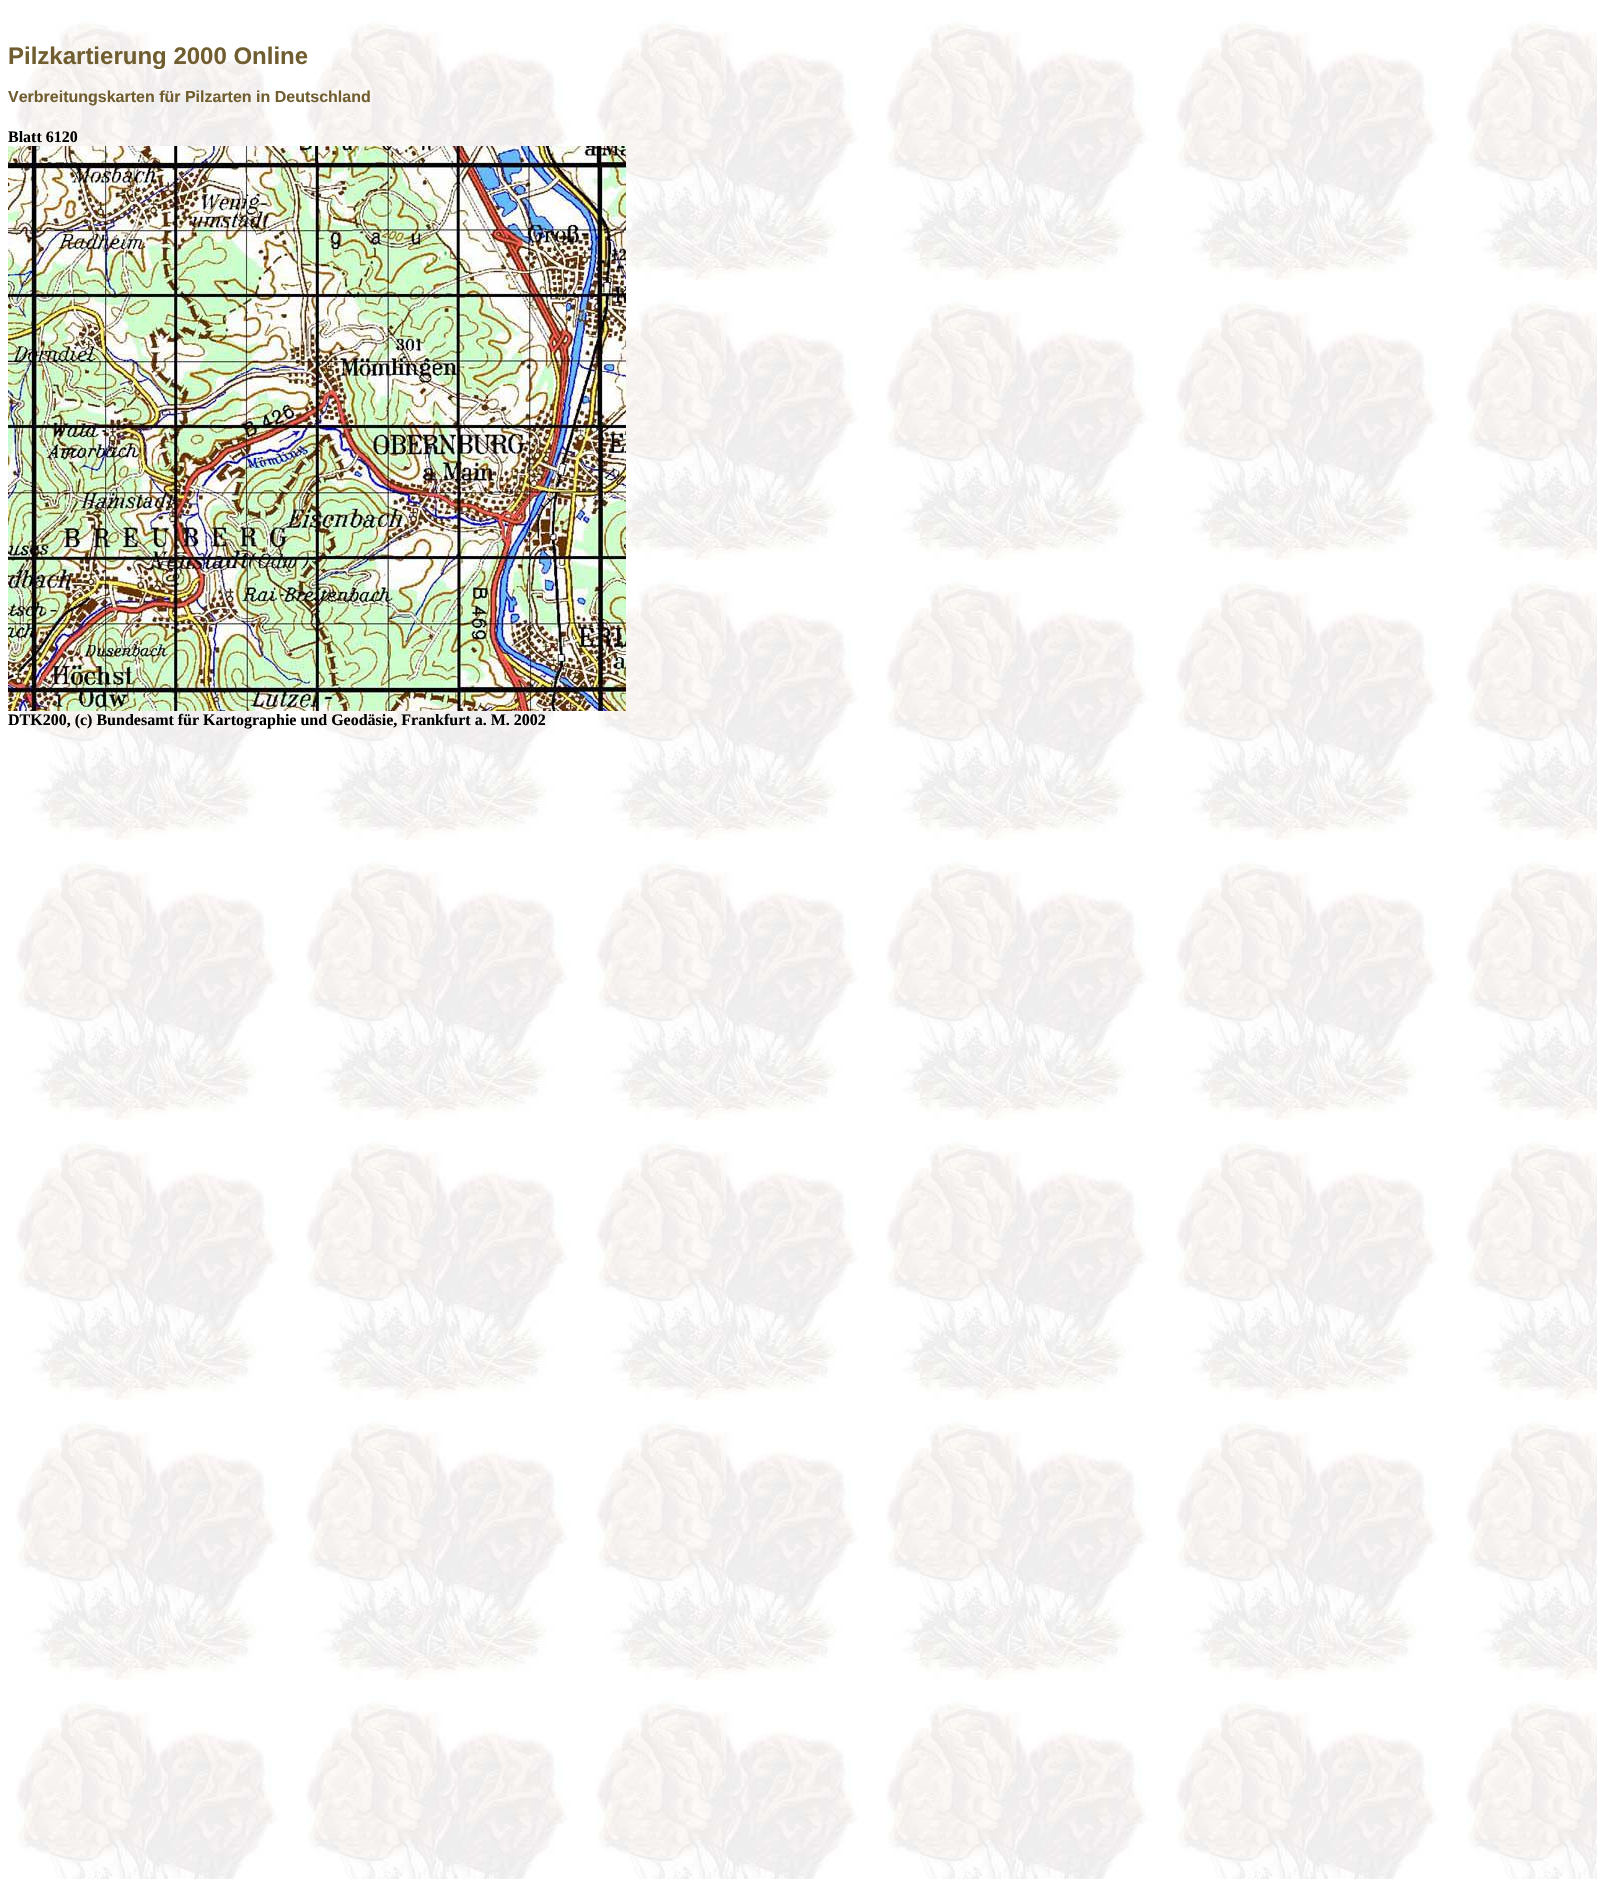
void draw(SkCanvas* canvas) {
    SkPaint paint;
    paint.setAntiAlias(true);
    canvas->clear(0xFFFFFFFF);
    canvas->drawImageRect(SkImages::DeferredFromEncodedData(SkData::MakeFromFileName("img1.png")), SkRect::MakeXYWH(0, 0, 1597, 1879), SkSamplingOptions());
    SkFont font1(fontMgr->matchFamilyStyle("Liberation Sans", SkFontStyle::Bold()), 24);
    font1.setSubpixel(true);
    paint.setColor(0xFF705E30);
    canvas->drawString("Pilzkartierung 2000 Online", 8, 64, font1, paint);
    SkFont font2(fontMgr->matchFamilyStyle("Liberation Sans", SkFontStyle::Bold()), 16);
    font2.setSubpixel(true);
    canvas->drawString("Verbreitungskarten für Pilzarten in Deutschland", 8, 102, font2, paint);
    SkFont font3(fontMgr->matchFamilyStyle("Liberation Serif", SkFontStyle::Bold()), 16);
    font3.setSubpixel(true);
    paint.setColor(0xFF000000);
    canvas->drawString("Blatt 6120", 8, 142, font3, paint);
    canvas->drawImageRect(SkImages::DeferredFromEncodedData(SkData::MakeFromFileName("img2.png")), SkRect::MakeXYWH(8, 146, 618, 565), SkSamplingOptions());
    canvas->drawString("DTK200, (c) Bundesamt für Kartographie und Geodäsie, Frankfurt a. M. 2002", 8, 725, font3, paint);
}
